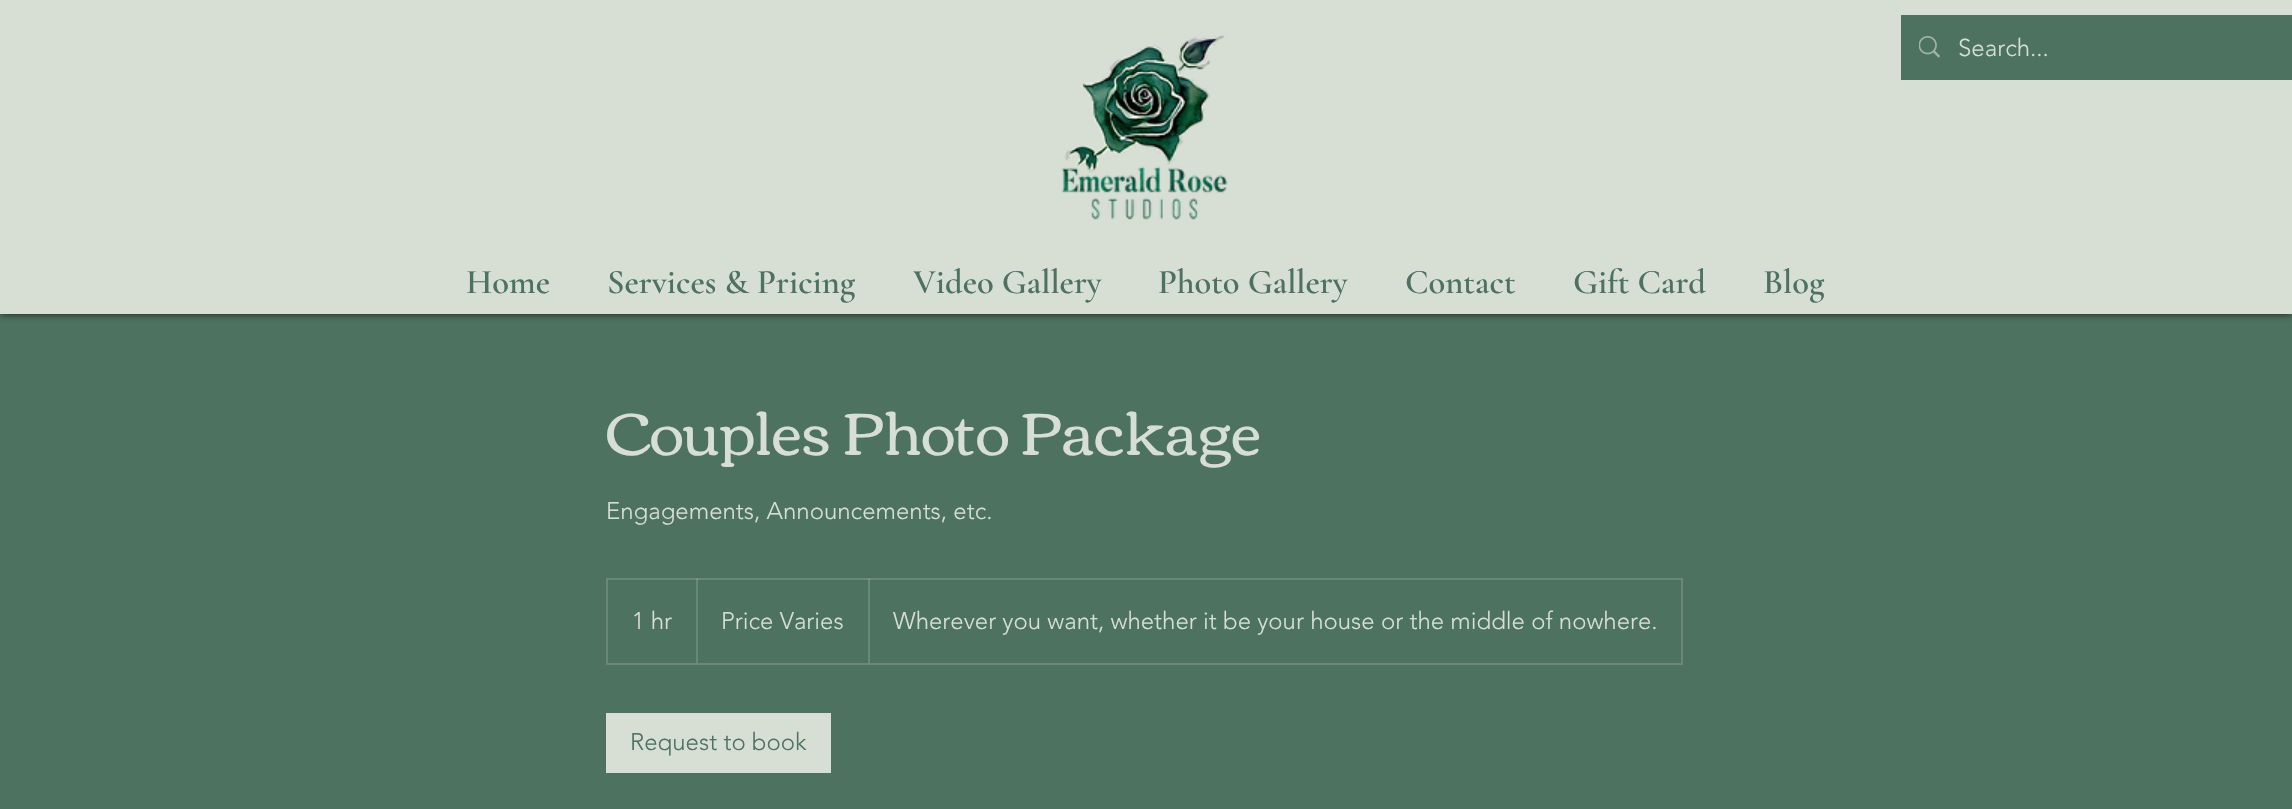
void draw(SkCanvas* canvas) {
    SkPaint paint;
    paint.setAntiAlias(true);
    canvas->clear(0xFF4E7260);
    paint.setColor(0xB3000000);
    paint.setMaskFilter(SkMaskFilter::MakeBlur(kNormal_SkBlurStyle, 4));
    canvas->drawRect(SkRect::MakeXYWH(0, 0, 2292, 314), paint);
    paint.setMaskFilter(nullptr);
    paint.setColor(0xFFD7DFD4);
    canvas->drawRect(SkRect::MakeXYWH(0, 0, 2292, 314), paint);
    canvas->drawImageRect(SkImages::DeferredFromEncodedData(SkData::MakeFromFileName("img1.png")), SkRect::MakeXYWH(1061, 35, 167, 185), SkSamplingOptions());
    paint.setColor(0xFF4E7260);
    canvas->drawRect(SkRect::MakeXYWH(1901, 15, 391, 65), paint);
    canvas->drawImageRect(SkImages::DeferredFromEncodedData(SkData::MakeFromFileName("img2.png")), SkRect::MakeXYWH(1919, 36, 21, 22), SkSamplingOptions());
    SkFont font1(fontMgr->matchFamilyStyle("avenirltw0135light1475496", SkFontStyle(300, SkFontStyle::kNormal_Width, SkFontStyle::kUpright_Slant)), 24);
    font1.setSubpixel(true);
    paint.setColor(0xFFD7DFD4);
    canvas->drawString("Search...", 1958, 56, font1, paint);
    SkFont font2(fontMgr->matchFamilyStyle("Cormorant Garamond", SkFontStyle(600, SkFontStyle::kNormal_Width, SkFontStyle::kUpright_Slant)), 34.5f);
    font2.setSubpixel(true);
    paint.setColor(0xFF4E7260);
    canvas->drawString("Home", 466, 293, font2, paint);
    canvas->drawString("Services & Pricing", 607, 293, font2, paint);
    canvas->drawString("Video Gallery", 913, 293, font2, paint);
    canvas->drawString("Photo Gallery", 1158, 293, font2, paint);
    canvas->drawString("Contact", 1405, 293, font2, paint);
    canvas->drawString("Gift Card", 1573, 293, font2, paint);
    canvas->drawString("Blog", 1763, 293, font2, paint);
    SkFont font3(fontMgr->matchFamilyStyle("Corben", SkFontStyle::Normal()), 60);
    font3.setSubpixel(true);
    paint.setColor(0xFFD7DFD4);
    canvas->drawString("Couples Photo Package", 606, 455, font3, paint);
    canvas->drawString("Engagements, Announcements, etc.", 606, 519, font1, paint);
    paint.setStyle(SkPaint::kStroke_Style);
    paint.setStrokeWidth(2);
    paint.setColor(0xFF698877);
    canvas->drawRect(SkRect::MakeXYWH(607, 579, 1075, 85), paint);
    paint.setStyle(SkPaint::kFill_Style);
    paint.setColor(0xFFD7DFD4);
    canvas->drawString("1 hr", 632, 629, font1, paint);
    paint.setColor(0x33D7DFD4);
    canvas->drawPath(SkPathBuilder().moveTo(696, 663).lineTo(696, 578).lineTo(698, 579).lineTo(698, 663).close().detach(), paint);
    paint.setColor(0xFFD7DFD4);
    canvas->drawString("Price Varies", 721, 629, font1, paint);
    paint.setColor(0x33D7DFD4);
    canvas->drawPath(SkPathBuilder().moveTo(868, 663).lineTo(868, 578).lineTo(870, 579).lineTo(870, 663).close().detach(), paint);
    paint.setColor(0xFFD7DFD4);
    canvas->drawString("Wherever you want, whether it be your house or the middle of nowhere.", 893, 629, font1, paint);
    canvas->drawRect(SkRect::MakeXYWH(606, 713, 225, 60), paint);
    paint.setColor(0xFF4E7260);
    canvas->drawString("Request to book", 630, 750, font1, paint);
}
